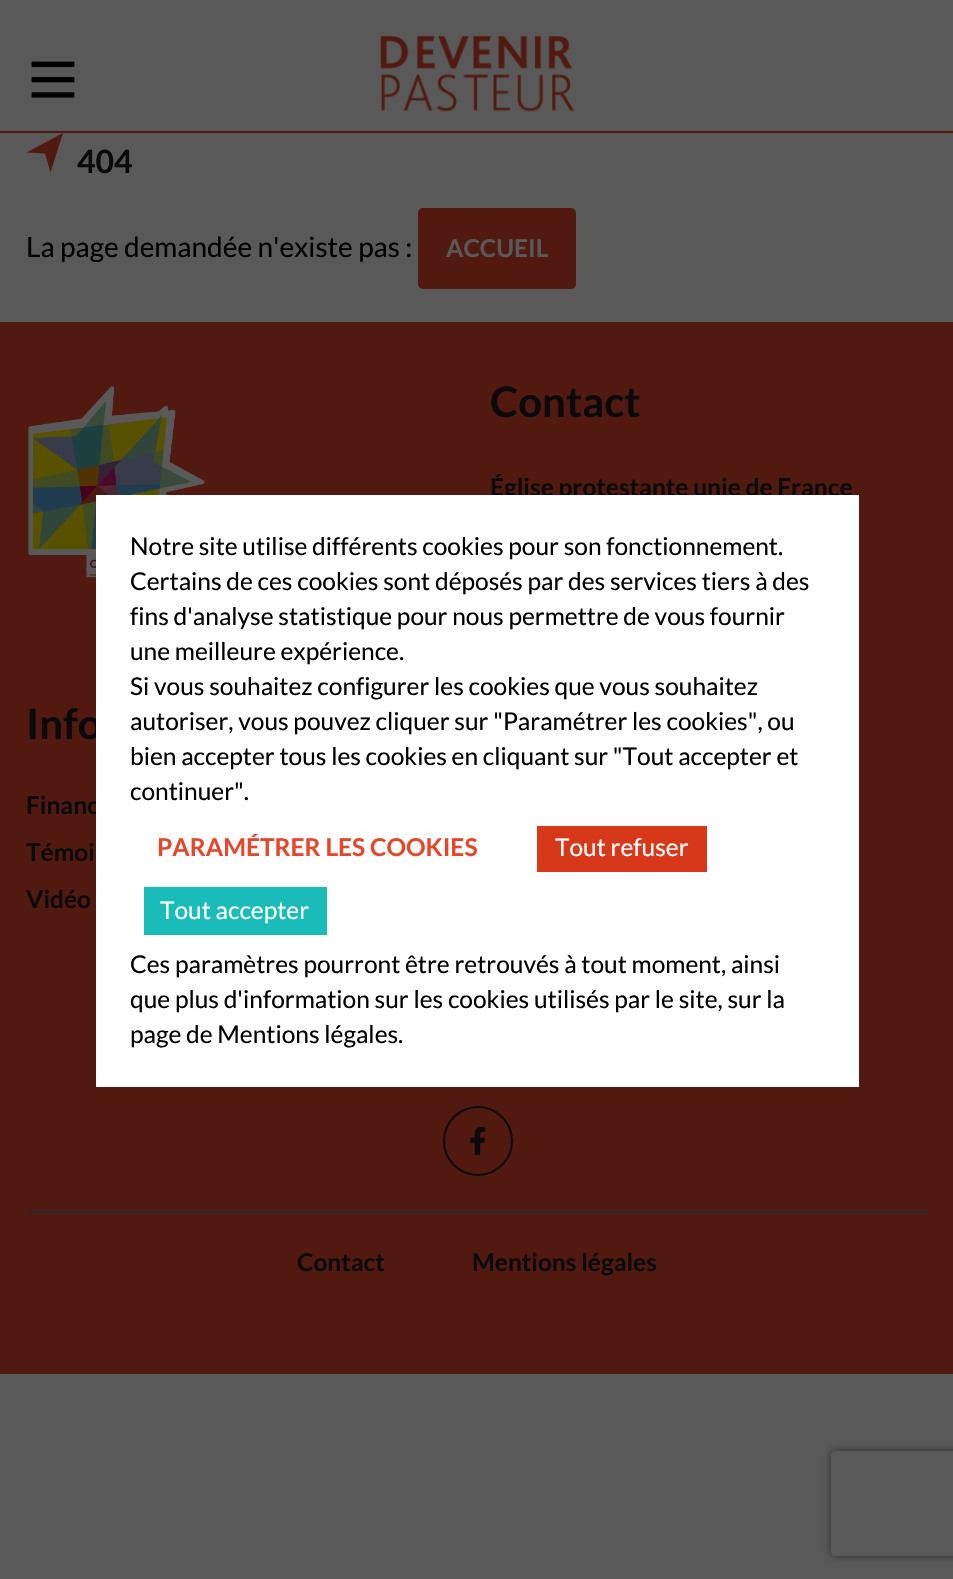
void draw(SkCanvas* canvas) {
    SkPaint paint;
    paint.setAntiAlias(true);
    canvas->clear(0xFF595959);
    paint.setColor(0xFF51190F);
    canvas->drawRect(SkRect::MakeXYWH(0, 131, 953, 2), paint);
    canvas->drawImageRect(SkImages::DeferredFromEncodedData(SkData::MakeFromFileName("img1.png")), SkRect::MakeXYWH(31, 61, 44, 37), SkSamplingOptions());
    canvas->drawImageRect(SkImages::DeferredFromEncodedData(SkData::MakeFromFileName("img2.png")), SkRect::MakeXYWH(380, 35, 194, 77), SkSamplingOptions());
    canvas->drawPath(SkPathBuilder().moveTo(26.5f, 152.5f).lineTo(45, 153.5f).lineTo(50.5f, 172.5f).lineTo(63, 133).close().detach(), paint);
    SkFont font1(fontMgr->matchFamilyStyle("Lato", SkFontStyle::Bold()), 32);
    font1.setSubpixel(true);
    paint.setColor(0xFF0A0A0A);
    canvas->drawString("404", 77, 173, font1, paint);
    SkFont font2(fontMgr->matchFamilyStyle("Lato", SkFontStyle::Normal()), 28);
    font2.setSubpixel(true);
    paint.setColor(0xFF000000);
    canvas->drawString("La page demandée n'existe pas :", 26, 257, font2, paint);
    paint.setColor(0xFF51190F);
    canvas->drawRoundRect(SkRect::MakeXYWH(419, 209, 156, 79), 4, 4, paint);
    paint.setStyle(SkPaint::kStroke_Style);
    paint.setStrokeWidth(2);
    canvas->drawRoundRect(SkRect::MakeXYWH(419, 209, 156, 79), 4, 4, paint);
    SkFont font3(fontMgr->matchFamilyStyle("Lato", SkFontStyle::Bold()), 24.5f);
    font3.setSubpixel(true);
    paint.setStyle(SkPaint::kFill_Style);
    paint.setColor(0xFF595959);
    canvas->drawString("ACCUEIL", 446, 257, font3, paint);
    paint.setColor(0xFF51190F);
    canvas->drawRect(SkRect::MakeXYWH(0, 322, 953, 1052), paint);
    canvas->drawImageRect(SkImages::DeferredFromEncodedData(SkData::MakeFromFileName("img3.png")), SkRect::MakeXYWH(28, 386, 177, 192), SkSamplingOptions());
    SkFont font4(fontMgr->matchFamilyStyle("Lato", SkFontStyle::Bold()), 42);
    font4.setSubpixel(true);
    paint.setColor(0xFF0A0A0A);
    canvas->drawString("Contact", 490, 417, font4, paint);
    canvas->drawString("Église protestante unie de France", 490, 496, font3, paint);
    canvas->drawString("Info", 26, 739, font4, paint);
    canvas->drawString("Financ", 26, 814, font3, paint);
    canvas->drawString("Témoi", 26, 861, font3, paint);
    canvas->drawString("Vidéo", 26, 908, font3, paint);
    paint.setStyle(SkPaint::kStroke_Style);
    canvas->drawCircle(478, 1141, 34, paint);
    canvas->drawImageRect(SkImages::DeferredFromEncodedData(SkData::MakeFromFileName("img4.png")), SkRect::MakeXYWH(470, 1127, 16, 28), SkSamplingOptions());
    paint.setStyle(SkPaint::kFill_Style);
    paint.setColor(0xFF272727);
    canvas->drawRect(SkRect::MakeXYWH(26, 1211, 902, 2), paint);
    paint.setColor(0xFF0A0A0A);
    canvas->drawString("Contact", 297, 1271, font3, paint);
    canvas->drawString("Mentions légales", 472, 1271, font3, paint);
    paint.setColor(0xFFFFFFFF);
    canvas->drawRect(SkRect::MakeXYWH(96, 495, 763, 592), paint);
    SkFont font5(fontMgr->matchFamilyStyle("Lato", SkFontStyle::Normal()), 24.5f);
    font5.setSubpixel(true);
    paint.setColor(0xFF000000);
    canvas->drawString("Notre site utilise différents cookies pour son fonctionnement.", 130, 555, font5, paint);
    canvas->drawString("Certains de ces cookies sont déposés par des services tiers à des", 130, 590, font5, paint);
    canvas->drawString("fins d'analyse statistique pour nous permettre de vous fournir", 130, 625, font5, paint);
    canvas->drawString("une meilleure expérience.", 130, 660, font5, paint);
    canvas->drawString("Si vous souhaitez configurer les cookies que vous souhaitez", 130, 695, font5, paint);
    canvas->drawString("autoriser, vous pouvez cliquer sur \"Paramétrer les cookies\", ou", 130, 730, font5, paint);
    canvas->drawString("bien accepter tous les cookies en cliquant sur \"Tout accepter et", 130, 765, font5, paint);
    canvas->drawString("continuer\".", 130, 800, font5, paint);
    paint.setColor(0xFFE6462A);
    canvas->drawString("PARAMÉTRER LES COOKIES", 157, 856, font3, paint);
    paint.setColor(0xFFD7381A);
    canvas->drawRect(SkRect::MakeXYWH(537, 826, 170, 46), paint);
    paint.setColor(0xFFFFFFFF);
    canvas->drawString("Tout refuser", 555, 856, font5, paint);
    paint.setColor(0xFF1ABCB9);
    canvas->drawRect(SkRect::MakeXYWH(144, 887, 183, 48), paint);
    paint.setColor(0xFFFFFFFF);
    canvas->drawString("Tout accepter", 160, 919, font5, paint);
    paint.setColor(0xFF000000);
    canvas->drawString("Ces paramètres pourront être retrouvés à tout moment, ainsi", 130, 973, font5, paint);
    canvas->drawString("que plus d'information sur les cookies utilisés par le site, sur la", 130, 1008, font5, paint);
    canvas->drawString("page de Mentions légales.", 130, 1043, font5, paint);
    canvas->save();
    canvas->clipPath(SkPathBuilder(SkPathFillType::kEvenOdd).moveTo(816, 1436).lineTo(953, 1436).lineTo(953, 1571).lineTo(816, 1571).close().moveTo(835, 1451).lineTo(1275, 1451).cubicTo(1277, 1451, 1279, 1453, 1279, 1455).lineTo(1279, 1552).cubicTo(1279, 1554, 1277, 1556, 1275, 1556).lineTo(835, 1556).cubicTo(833, 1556, 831, 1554, 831, 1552).lineTo(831, 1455).cubicTo(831, 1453, 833, 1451, 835, 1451).close().detach(), true);
    paint.setColor(0xFF2D2D2D);
    paint.setMaskFilter(SkMaskFilter::MakeBlur(kNormal_SkBlurStyle, 4.5f));
    canvas->drawRoundRect(SkRect::MakeXYWH(831, 1451, 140, 105), 4, 4, paint);
    paint.setMaskFilter(nullptr);
    canvas->restore();
}
